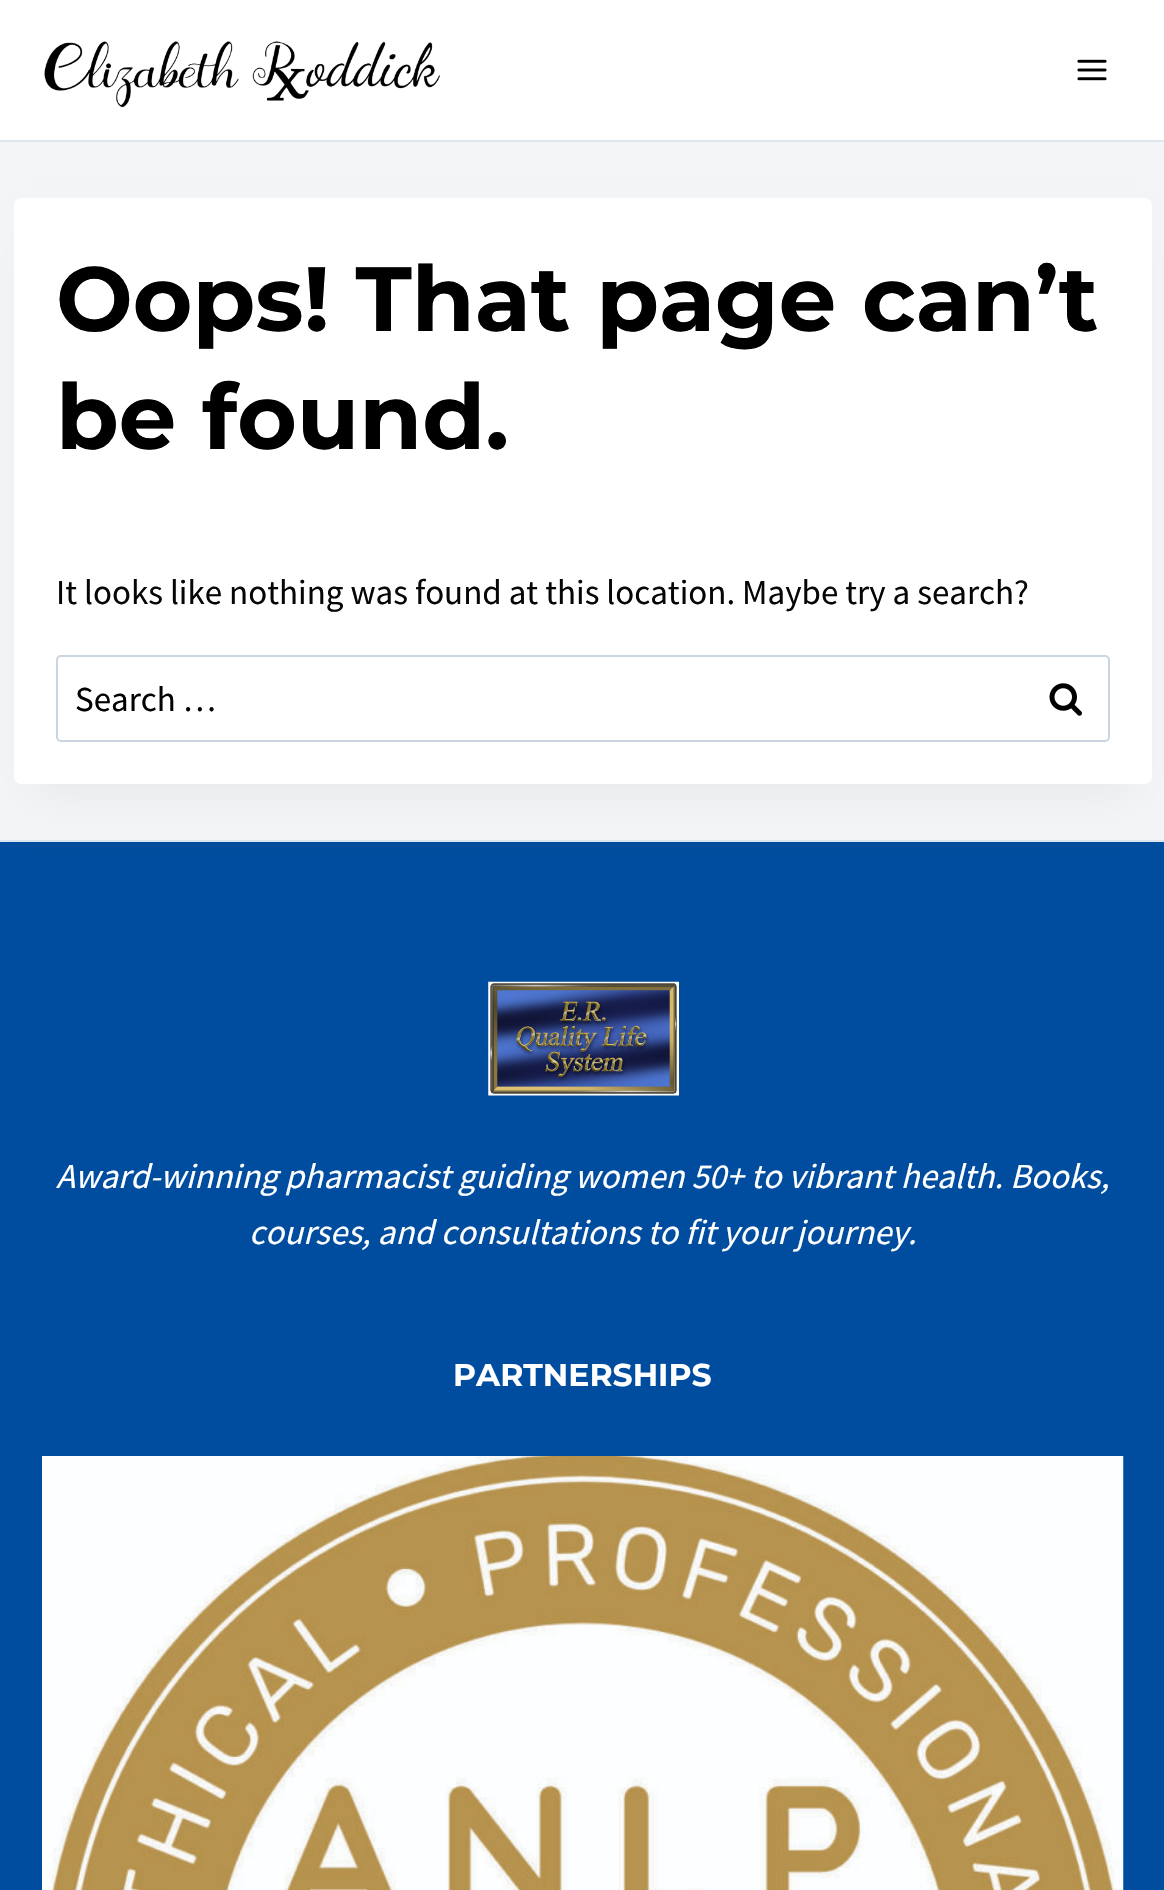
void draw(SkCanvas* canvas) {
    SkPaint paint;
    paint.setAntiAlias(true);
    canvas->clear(0xFFF3F5F7);
    paint.setColor(0xFFFFFFFF);
    canvas->drawRect(SkRect::MakeXYWH(0, 0, 1164, 140), paint);
    paint.setColor(0xFFDEE7F0);
    canvas->drawRect(SkRect::MakeXYWH(0, 140, 1164, 2), paint);
    canvas->drawImageRect(SkImages::DeferredFromEncodedData(SkData::MakeFromFileName("img1.png")), SkRect::MakeXYWH(44, 41, 396, 67), SkSamplingOptions());
    canvas->drawImageRect(SkImages::DeferredFromEncodedData(SkData::MakeFromFileName("img2.png")), SkRect::MakeXYWH(1077, 59, 30, 22), SkSamplingOptions());
    paint.setColor(0xFF004D9F);
    canvas->drawRect(SkRect::MakeXYWH(0, 842, 1164, 1048), paint);
    paint.setColor(0xFFDEE7F0);
    canvas->drawRect(SkRect::MakeXYWH(0, 840, 1164, 2), paint);
    paint.setColor(0x0D000000);
    paint.setMaskFilter(SkMaskFilter::MakeBlur(kNormal_SkBlurStyle, 22));
    canvas->drawRect(SkRect::MakeXYWH(32, 242, 1102, 551), paint);
    paint.setMaskFilter(nullptr);
    paint.setColor(0xFFFFFFFF);
    canvas->drawRoundRect(SkRect::MakeXYWH(14, 198, 1138, 586), 7, 7, paint);
    SkFont font1(fontMgr->matchFamilyStyle("Montserrat", SkFontStyle::Bold()), 91);
    font1.setSubpixel(true);
    paint.setColor(0xFF000000);
    canvas->drawString("Oops! That page can’t", 56, 331, font1, paint);
    canvas->drawString("be found.", 56, 449, font1, paint);
    SkFont font2(fontMgr->matchFamilyStyle("Source Sans Pro", SkFontStyle::Normal()), 35);
    font2.setSubpixel(true);
    paint.setColor(0xFF060606);
    canvas->drawString("It looks like nothing was found at this location. Maybe try a search?", 56, 604, font2, paint);
    paint.setStyle(SkPaint::kStroke_Style);
    paint.setStrokeWidth(2);
    paint.setColor(0xFFCBD5E0);
    canvas->drawRoundRect(SkRect::MakeXYWH(57, 656, 1052, 85), 4, 4, paint);
    paint.setStyle(SkPaint::kFill_Style);
    paint.setColor(0xFF000000);
    canvas->drawString("Search …", 75, 711, font2, paint);
    canvas->drawImageRect(SkImages::DeferredFromEncodedData(SkData::MakeFromFileName("img3.png")), SkRect::MakeXYWH(1049, 683, 33, 33), SkSamplingOptions());
    canvas->drawImageRect(SkImages::DeferredFromEncodedData(SkData::MakeFromFileName("img4.png")), SkRect::MakeXYWH(488, 981, 191, 115), SkSamplingOptions());
    SkFont font3(fontMgr->matchFamilyStyle("Source Sans Pro", SkFontStyle::Italic()), 35);
    font3.setSubpixel(true);
    paint.setColor(0xFFFFFFFF);
    canvas->drawString("Award-winning pharmacist guiding women 50+ to vibrant health. Books,", 56, 1188, font3, paint);
    canvas->drawString("courses, and consultations to fit your journey.", 249, 1244, font3, paint);
    SkFont font4(fontMgr->matchFamilyStyle("Montserrat", SkFontStyle::Bold()), 31.5f);
    font4.setSubpixel(true);
    canvas->drawString("PARTNERSHIPS", 453, 1386, font4, paint);
    canvas->drawImageRect(SkImages::DeferredFromEncodedData(SkData::MakeFromFileName("img5.png")), SkRect::MakeXYWH(42, 1456, 1082, 434), SkSamplingOptions());
}
